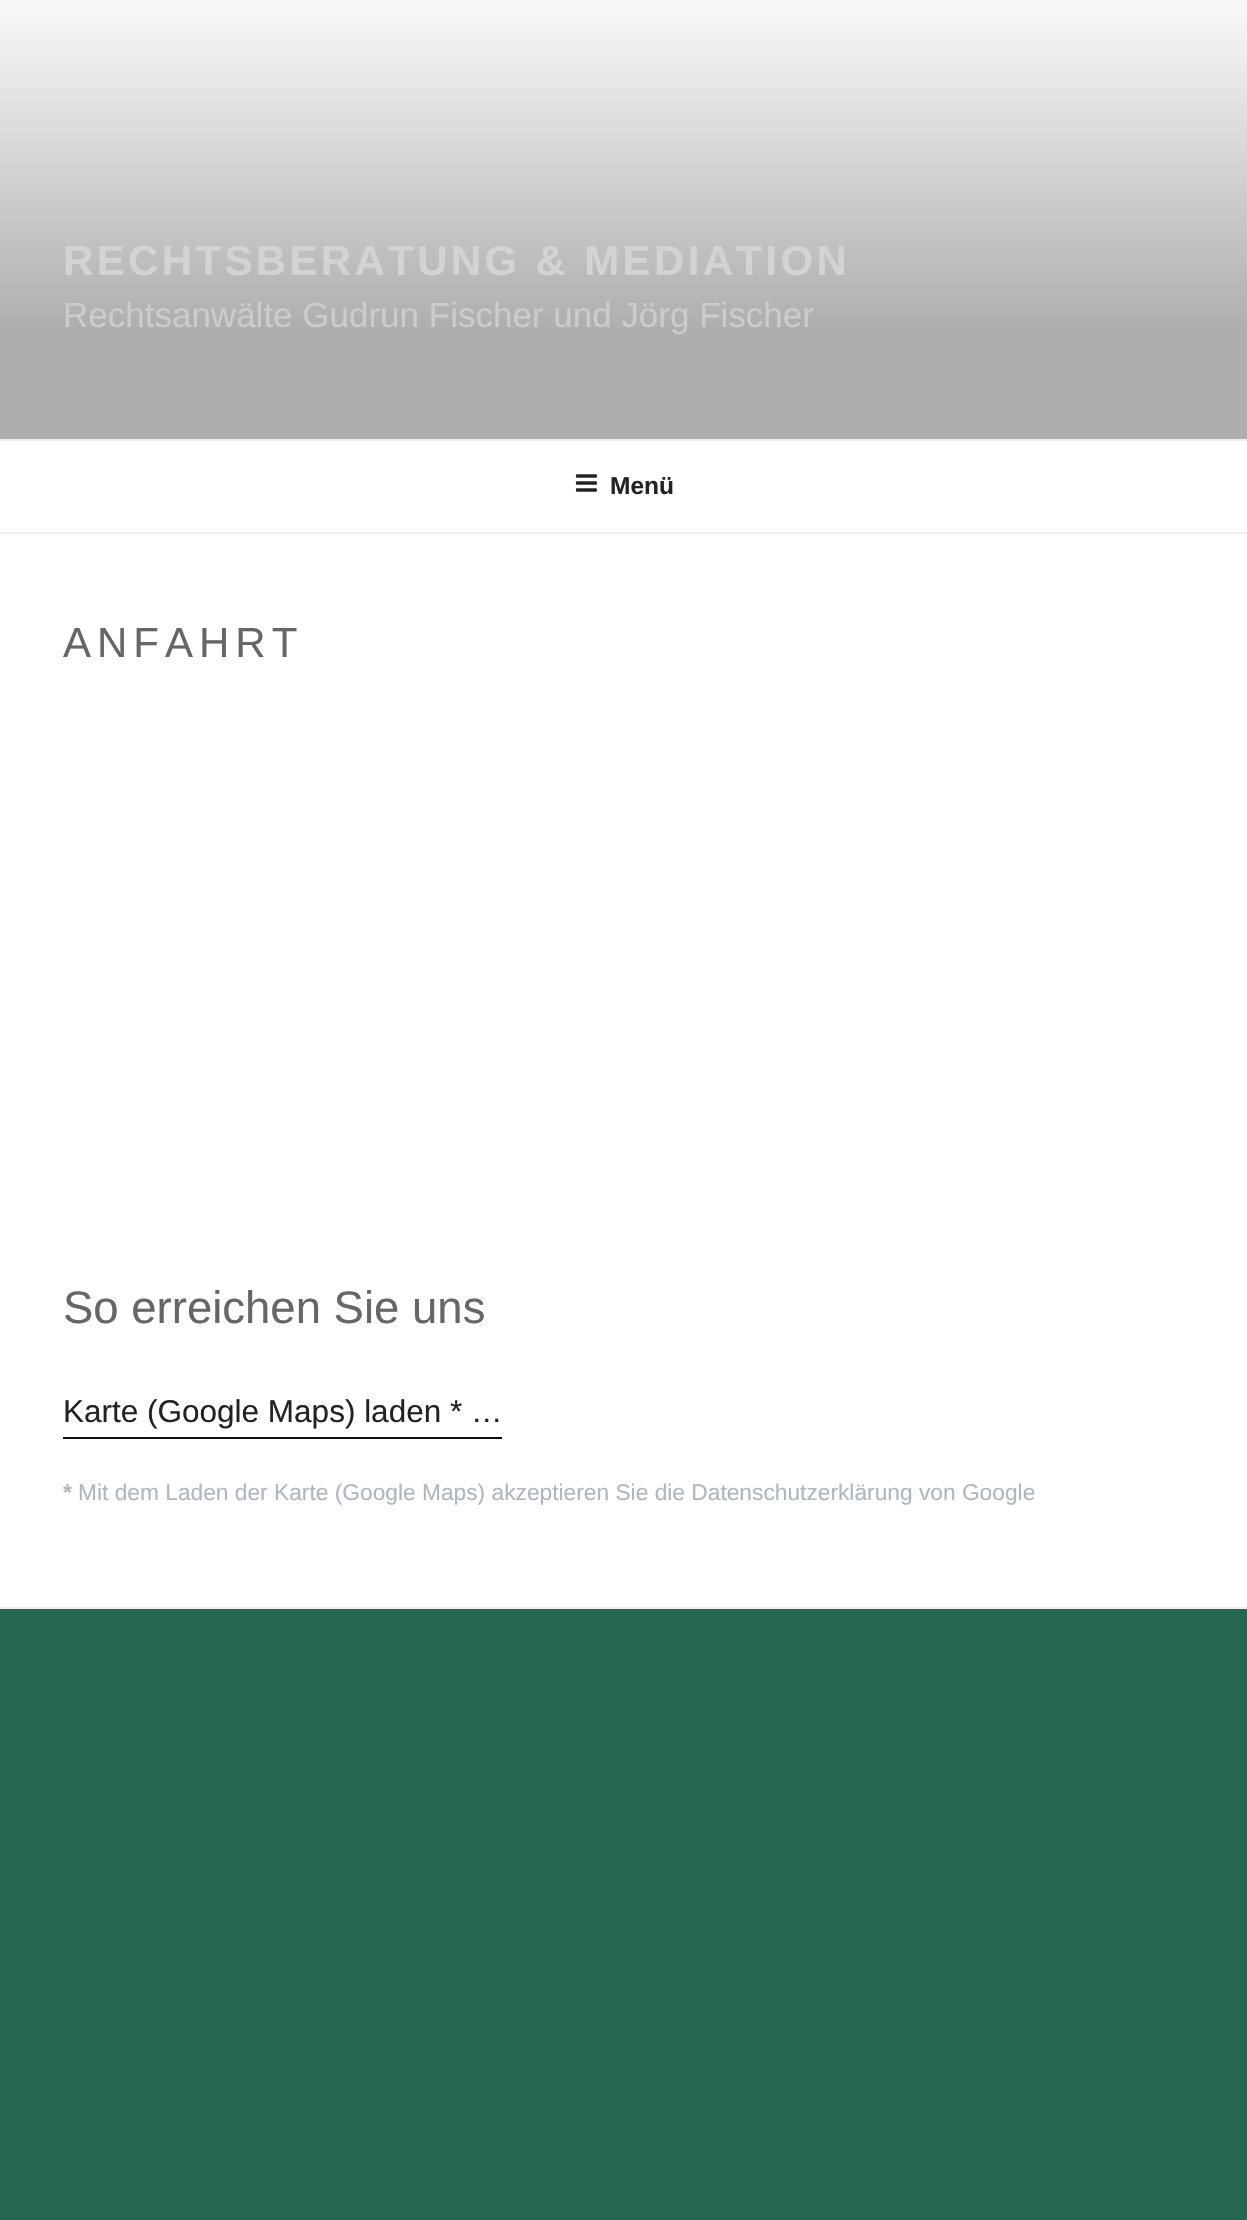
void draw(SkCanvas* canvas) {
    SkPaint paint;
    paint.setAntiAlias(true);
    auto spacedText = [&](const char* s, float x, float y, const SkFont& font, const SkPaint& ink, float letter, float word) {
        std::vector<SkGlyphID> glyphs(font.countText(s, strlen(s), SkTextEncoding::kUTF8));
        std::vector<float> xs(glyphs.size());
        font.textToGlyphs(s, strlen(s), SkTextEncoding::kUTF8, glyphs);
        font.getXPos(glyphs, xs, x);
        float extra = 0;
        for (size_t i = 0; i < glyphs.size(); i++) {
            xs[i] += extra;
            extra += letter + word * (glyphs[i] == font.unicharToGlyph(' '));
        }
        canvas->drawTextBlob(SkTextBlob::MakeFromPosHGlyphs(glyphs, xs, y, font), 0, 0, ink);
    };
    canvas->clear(0xFFFFFFFF);
    {
        const SkColor colors[] = {0xFFF9F9F9, 0xFFAEAEAE, 0xFFAEAEAE};
        const float stops[] = {0, 0.75f, 1};
        const SkPoint ends[] = {{624, 0}, {624, 439}};
        paint.setShader(SkGradientShader::MakeLinear(ends, colors, stops, 3, SkTileMode::kClamp));
        paint.setAlpha(255);
    }
    canvas->drawRect(SkRect::MakeXYWH(0, 0, 1247, 439), paint);
    SkFont font1(fontMgr->matchFamilyStyle("Liberation Sans", SkFontStyle::Bold()), 42);
    font1.setSubpixel(true);
    paint.setShader(nullptr);
    paint.setColor(0xFFD3D3D3);
    spacedText("RECHTSBERATUNG & MEDIATION", 63, 275, font1, paint, 3.35f, 0);
    SkFont font2(fontMgr->matchFamilyStyle("Liberation Sans", SkFontStyle::Normal()), 35);
    font2.setSubpixel(true);
    paint.setColor(0xFFCCCCCC);
    canvas->drawString("Rechtsanwälte Gudrun Fischer und Jörg Fischer", 63, 327, font2, paint);
    paint.setColor(0xFFEEEEEE);
    canvas->drawRect(SkRect::MakeXYWH(0, 439, 1247, 2), paint);
    canvas->drawRect(SkRect::MakeXYWH(0, 532, 1247, 2), paint);
    canvas->drawImageRect(SkImages::DeferredFromEncodedData(SkData::MakeFromFileName("img1.png")), SkRect::MakeXYWH(575, 474, 22, 18), SkSamplingOptions());
    SkFont font3(fontMgr->matchFamilyStyle("Liberation Sans", SkFontStyle::Bold()), 24.5f);
    font3.setSubpixel(true);
    paint.setColor(0xFF222222);
    canvas->drawString("Menü", 610, 494, font3, paint);
    SkFont font4(fontMgr->matchFamilyStyle("Liberation Sans", SkFontStyle::Normal()), 42);
    font4.setSubpixel(true);
    paint.setColor(0xFF666666);
    spacedText("ANFAHRT", 63, 657, font4, paint, 6, 0);
    SkFont font5(fontMgr->matchFamilyStyle("Liberation Sans", SkFontStyle::Normal()), 45.5f);
    font5.setSubpixel(true);
    canvas->drawString("So erreichen Sie uns", 63, 1323, font5, paint);
    paint.setColor(0xFF0F0F0F);
    canvas->drawRect(SkRect::MakeXYWH(63, 1437, 439, 2), paint);
    SkFont font6(fontMgr->matchFamilyStyle("Liberation Sans", SkFontStyle::Normal()), 31.5f);
    font6.setSubpixel(true);
    paint.setColor(0xFF222222);
    canvas->drawString("Karte (Google Maps) laden * …", 63, 1422, font6, paint);
    SkFont font7(fontMgr->matchFamilyStyle("Liberation Sans", SkFontStyle::Bold()), 22.75f);
    font7.setSubpixel(true);
    paint.setColor(0xFFABB8C3);
    canvas->drawString("*", 63, 1500, font7, paint);
    SkFont font8(fontMgr->matchFamilyStyle("Liberation Sans", SkFontStyle::Normal()), 22.75f);
    font8.setSubpixel(true);
    canvas->drawString("Mit dem Laden der Karte (Google Maps) akzeptieren Sie die Datenschutzerklärung von Google", 78, 1500, font8, paint);
    paint.setColor(0xFF256650);
    canvas->drawRect(SkRect::MakeXYWH(0, 1609, 1247, 611), paint);
    paint.setColor(0xFFEEEEEE);
    canvas->drawRect(SkRect::MakeXYWH(0, 1607, 1247, 2), paint);
}
